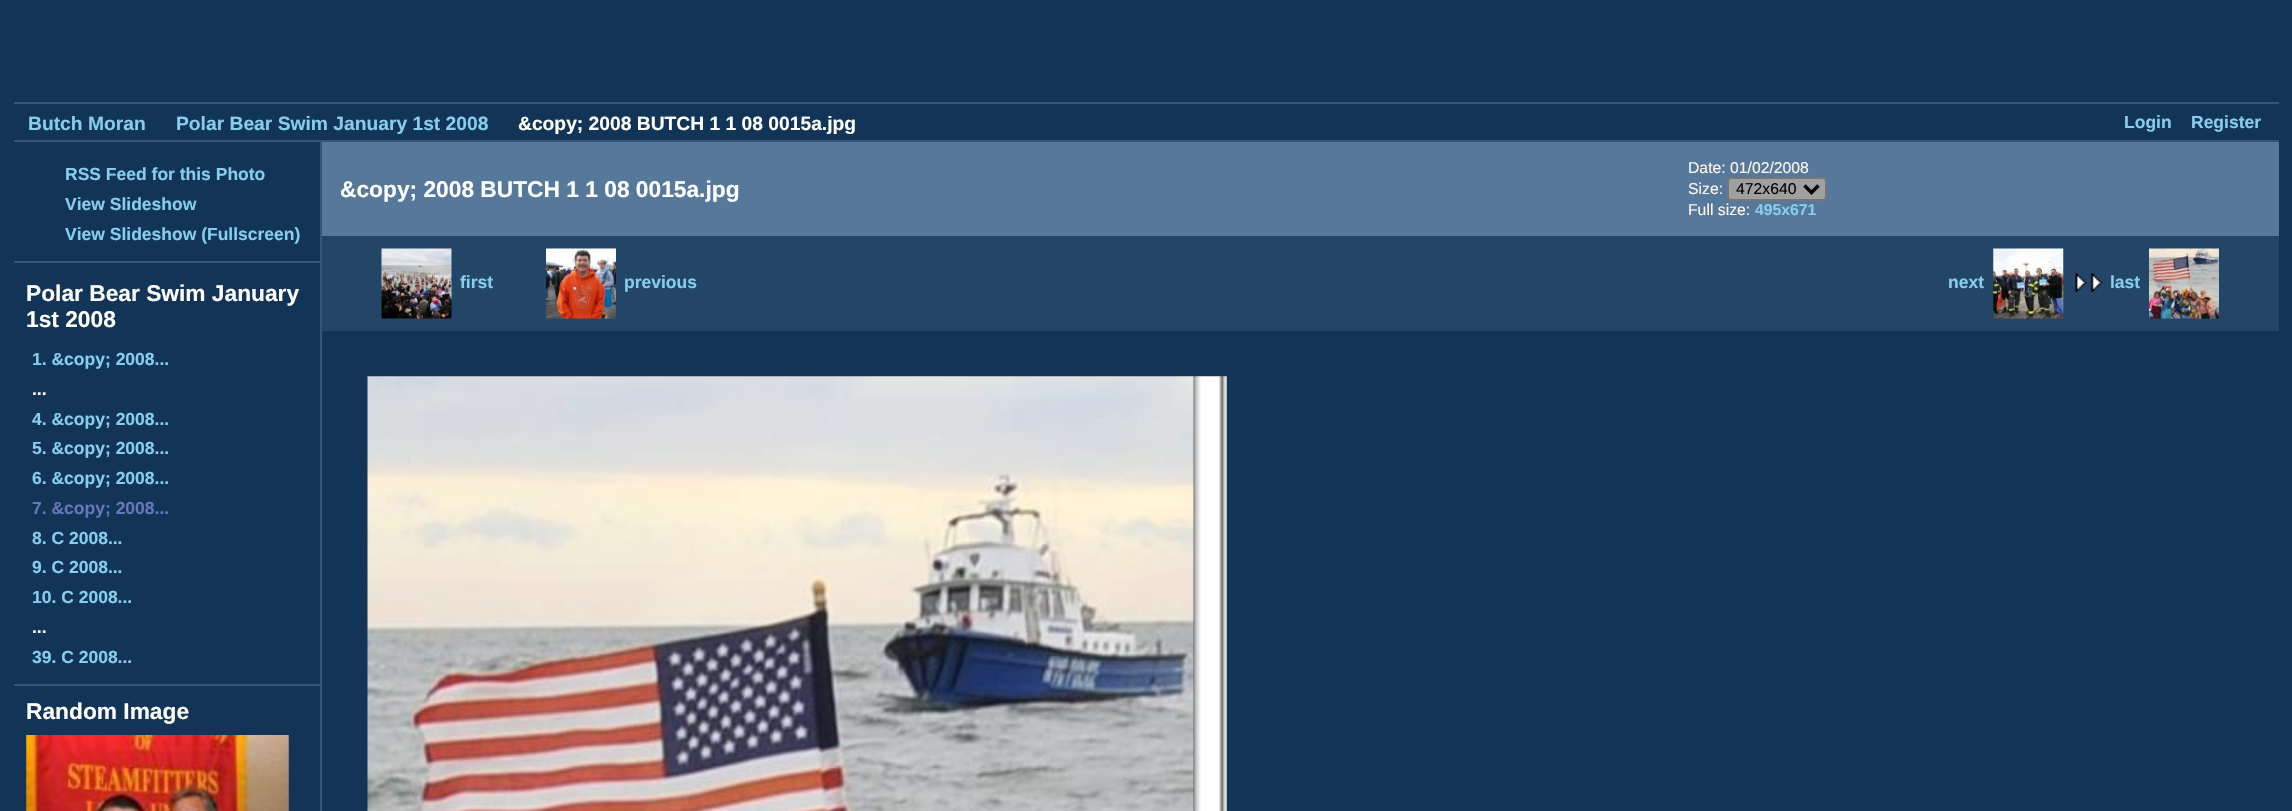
void draw(SkCanvas* canvas) {
    SkPaint paint;
    paint.setAntiAlias(true);
    canvas->clear(0xFF123456);
    paint.setColor(0xFF345678);
    canvas->drawRect(SkRect::MakeXYWH(14, 102, 2265, 2), paint);
    canvas->drawRect(SkRect::MakeXYWH(14, 140, 2265, 2), paint);
    SkFont font1(fontMgr->matchFamilyStyle("Liberation Sans", SkFontStyle::Bold()), 19.25f);
    font1.setSubpixel(true);
    paint.setColor(0xFF87CEEB);
    canvas->drawString("Butch Moran", 28, 130, font1, paint);
    canvas->drawString("Polar Bear Swim January 1st 2008", 176, 130, font1, paint);
    paint.setColor(0xFFFFFFFF);
    canvas->drawString("&copy; 2008 BUTCH 1 1 08 0015a.jpg", 518, 130, font1, paint);
    SkFont font2(fontMgr->matchFamilyStyle("Liberation Sans", SkFontStyle::Bold()), 17.5f);
    font2.setSubpixel(true);
    paint.setColor(0xFF87CEEB);
    canvas->drawString("Login", 2124, 128, font2, paint);
    canvas->drawString("Register", 2191, 128, font2, paint);
    paint.setColor(0xFF345678);
    canvas->drawRect(SkRect::MakeXYWH(320, 142, 2, 669), paint);
    canvas->drawRect(SkRect::MakeXYWH(14, 261, 306, 2), paint);
    paint.setColor(0xFF87CEEB);
    canvas->drawString("RSS Feed for this Photo", 65, 180, font2, paint);
    canvas->drawString("View Slideshow", 65, 210, font2, paint);
    canvas->drawString("View Slideshow (Fullscreen)", 65, 240, font2, paint);
    paint.setColor(0xFF345678);
    canvas->drawRect(SkRect::MakeXYWH(14, 684, 306, 2), paint);
    SkFont font3(fontMgr->matchFamilyStyle("Liberation Sans", SkFontStyle::Bold()), 22.75f);
    font3.setSubpixel(true);
    paint.setColor(0xFFFFFFFF);
    canvas->drawString("Polar Bear Swim January", 26, 301, font3, paint);
    canvas->drawString("1st 2008", 26, 327, font3, paint);
    paint.setColor(0xFF87CEEB);
    canvas->drawString("1. &copy; 2008...", 32, 365, font2, paint);
    paint.setColor(0xFFFFFFFF);
    canvas->drawString("...", 32, 395, font2, paint);
    paint.setColor(0xFF87CEEB);
    canvas->drawString("4. &copy; 2008...", 32, 425, font2, paint);
    canvas->drawString("5. &copy; 2008...", 32, 454, font2, paint);
    canvas->drawString("6. &copy; 2008...", 32, 484, font2, paint);
    paint.setColor(0xFF6677BB);
    canvas->drawString("7. &copy; 2008...", 32, 514, font2, paint);
    paint.setColor(0xFF87CEEB);
    canvas->drawString("8. C 2008...", 32, 544, font2, paint);
    canvas->drawString("9. C 2008...", 32, 573, font2, paint);
    canvas->drawString("10. C 2008...", 32, 603, font2, paint);
    paint.setColor(0xFFFFFFFF);
    canvas->drawString("...", 32, 633, font2, paint);
    paint.setColor(0xFF87CEEB);
    canvas->drawString("39. C 2008...", 32, 663, font2, paint);
    paint.setColor(0xFFFFFFFF);
    canvas->drawString("Random Image", 26, 719, font3, paint);
    canvas->drawImageRect(SkImages::DeferredFromEncodedData(SkData::MakeFromFileName("img1.png")), SkRect::MakeXYWH(26, 735, 263, 76), SkSamplingOptions());
    paint.setColor(0xFF56789A);
    canvas->drawRect(SkRect::MakeXYWH(322, 142, 1957, 94), paint);
    paint.setColor(0xFFFFFFFF);
    canvas->drawString("&copy; 2008 BUTCH 1 1 08 0015a.jpg", 340, 197, font3, paint);
    SkFont font4(fontMgr->matchFamilyStyle("Liberation Sans", SkFontStyle::Normal()), 15.75f);
    font4.setSubpixel(true);
    paint.setColor(0xFFFFF5EE);
    canvas->drawString("Date: 01/02/2008", 1688, 173, font4, paint);
    canvas->drawString("Size:", 1688, 194, font4, paint);
    paint.setColor(0xFFA0A0A0);
    canvas->drawRoundRect(SkRect::MakeXYWH(1728, 178, 98, 22), 3, 3, paint);
    paint.setStyle(SkPaint::kStroke_Style);
    paint.setStrokeWidth(2);
    paint.setColor(0xFF767676);
    canvas->drawRoundRect(SkRect::MakeXYWH(1728, 178, 98, 22), 3, 3, paint);
    paint.setStrokeWidth(3.5f);
    paint.setColor(0xFF000000);
    canvas->drawPath(SkPathBuilder().moveTo(1804.5f, 185.5f).lineTo(1811.5f, 192.5f).lineTo(1818.5f, 185.5f).detach(), paint);
    paint.setStyle(SkPaint::kFill_Style);
    canvas->drawString("472x640", 1736, 194, font4, paint);
    paint.setColor(0xFFFFF5EE);
    canvas->drawString("Full size:", 1688, 215, font4, paint);
    SkFont font5(fontMgr->matchFamilyStyle("Liberation Sans", SkFontStyle::Bold()), 15.75f);
    font5.setSubpixel(true);
    paint.setColor(0xFF87CEEB);
    canvas->drawString("495x671", 1755, 215, font5, paint);
    paint.setColor(0xFF234567);
    canvas->drawRect(SkRect::MakeXYWH(322, 236, 1957, 95), paint);
    canvas->drawImageRect(SkImages::DeferredFromEncodedData(SkData::MakeFromFileName("img2.png")), SkRect::MakeXYWH(381, 248, 71, 71), SkSamplingOptions());
    paint.setColor(0xFF87CEEB);
    canvas->drawString("first", 460, 288, font2, paint);
    canvas->drawImageRect(SkImages::DeferredFromEncodedData(SkData::MakeFromFileName("img3.png")), SkRect::MakeXYWH(546, 248, 70, 71), SkSamplingOptions());
    canvas->drawString("previous", 624, 288, font2, paint);
    canvas->drawString("next", 1948, 288, font2, paint);
    canvas->drawImageRect(SkImages::DeferredFromEncodedData(SkData::MakeFromFileName("img4.png")), SkRect::MakeXYWH(1993, 248, 71, 71), SkSamplingOptions());
    canvas->drawImageRect(SkImages::DeferredFromEncodedData(SkData::MakeFromFileName("img5.png")), SkRect::MakeXYWH(2075, 273, 28, 20), SkSamplingOptions());
    canvas->drawString("last", 2110, 288, font2, paint);
    canvas->drawImageRect(SkImages::DeferredFromEncodedData(SkData::MakeFromFileName("img6.png")), SkRect::MakeXYWH(2149, 248, 70, 71), SkSamplingOptions());
    canvas->drawImageRect(SkImages::DeferredFromEncodedData(SkData::MakeFromFileName("img8.png")), SkRect::MakeXYWH(1193, 376, 34, 435), SkSamplingOptions());
    canvas->drawImageRect(SkImages::DeferredFromEncodedData(SkData::MakeFromFileName("img7.png")), SkRect::MakeXYWH(367, 376, 827, 435), SkSamplingOptions());
}
